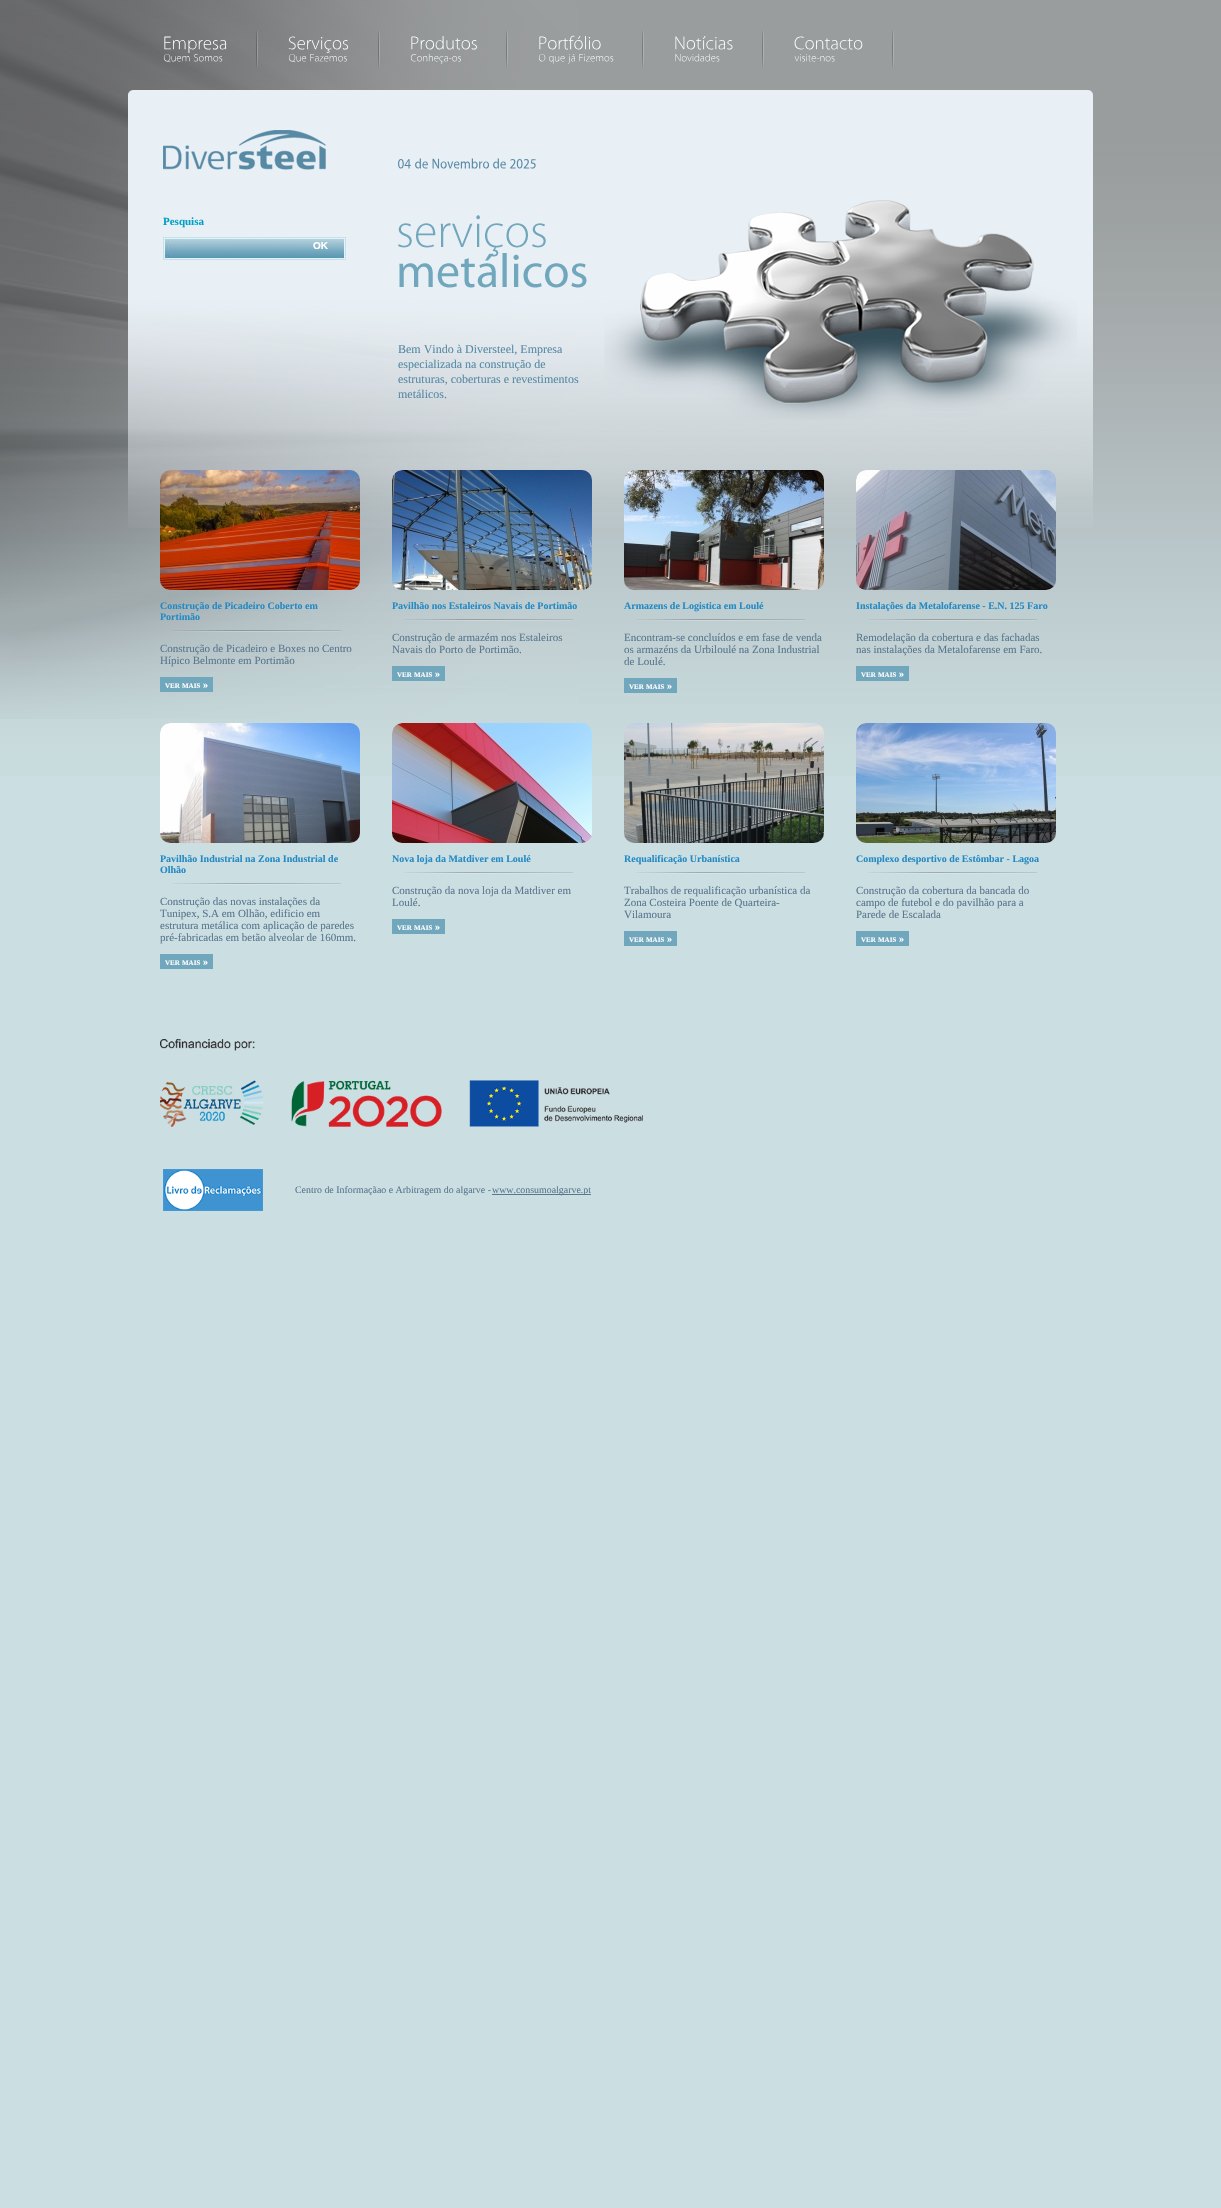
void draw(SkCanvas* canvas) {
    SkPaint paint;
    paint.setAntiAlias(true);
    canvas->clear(0xFFCBDEE2);
    canvas->drawImageRect(SkImages::DeferredFromEncodedData(SkData::MakeFromFileName("img1.png")), SkRect::MakeXYWH(0, 0, 1221, 776), SkSamplingOptions());
    canvas->drawImageRect(SkImages::DeferredFromEncodedData(SkData::MakeFromFileName("img2.png")), SkRect::MakeXYWH(0, 0, 578, 719), SkSamplingOptions());
    canvas->drawImageRect(SkImages::DeferredFromEncodedData(SkData::MakeFromFileName("img3.png")), SkRect::MakeXYWH(256, 31, 2, 36), SkSamplingOptions());
    canvas->drawImageRect(SkImages::DeferredFromEncodedData(SkData::MakeFromFileName("img4.png")), SkRect::MakeXYWH(164, 36, 63, 17), SkSamplingOptions());
    canvas->drawImageRect(SkImages::DeferredFromEncodedData(SkData::MakeFromFileName("img5.png")), SkRect::MakeXYWH(163, 54, 27, 9), SkSamplingOptions());
    canvas->drawImageRect(SkImages::DeferredFromEncodedData(SkData::MakeFromFileName("img6.png")), SkRect::MakeXYWH(194, 54, 29, 8), SkSamplingOptions());
    canvas->drawImageRect(SkImages::DeferredFromEncodedData(SkData::MakeFromFileName("img7.png")), SkRect::MakeXYWH(378, 31, 2, 36), SkSamplingOptions());
    canvas->drawImageRect(SkImages::DeferredFromEncodedData(SkData::MakeFromFileName("img8.png")), SkRect::MakeXYWH(288, 36, 61, 17), SkSamplingOptions());
    canvas->drawImageRect(SkImages::DeferredFromEncodedData(SkData::MakeFromFileName("img9.png")), SkRect::MakeXYWH(288, 54, 19, 9), SkSamplingOptions());
    canvas->drawImageRect(SkImages::DeferredFromEncodedData(SkData::MakeFromFileName("img10.png")), SkRect::MakeXYWH(310, 54, 37, 8), SkSamplingOptions());
    canvas->drawImageRect(SkImages::DeferredFromEncodedData(SkData::MakeFromFileName("img11.png")), SkRect::MakeXYWH(506, 31, 2, 36), SkSamplingOptions());
    canvas->drawImageRect(SkImages::DeferredFromEncodedData(SkData::MakeFromFileName("img12.png")), SkRect::MakeXYWH(411, 36, 66, 14), SkSamplingOptions());
    canvas->drawImageRect(SkImages::DeferredFromEncodedData(SkData::MakeFromFileName("img13.png")), SkRect::MakeXYWH(410, 53, 51, 11), SkSamplingOptions());
    canvas->drawImageRect(SkImages::DeferredFromEncodedData(SkData::MakeFromFileName("img14.png")), SkRect::MakeXYWH(642, 31, 2, 36), SkSamplingOptions());
    canvas->drawImageRect(SkImages::DeferredFromEncodedData(SkData::MakeFromFileName("img15.png")), SkRect::MakeXYWH(539, 35, 62, 15), SkSamplingOptions());
    canvas->drawImageRect(SkImages::DeferredFromEncodedData(SkData::MakeFromFileName("img16.png")), SkRect::MakeXYWH(538, 54, 8, 8), SkSamplingOptions());
    canvas->drawImageRect(SkImages::DeferredFromEncodedData(SkData::MakeFromFileName("img17.png")), SkRect::MakeXYWH(549, 56, 16, 8), SkSamplingOptions());
    canvas->drawImageRect(SkImages::DeferredFromEncodedData(SkData::MakeFromFileName("img18.png")), SkRect::MakeXYWH(568, 54, 7, 10), SkSamplingOptions());
    canvas->drawImageRect(SkImages::DeferredFromEncodedData(SkData::MakeFromFileName("img19.png")), SkRect::MakeXYWH(579, 54, 35, 8), SkSamplingOptions());
    canvas->drawImageRect(SkImages::DeferredFromEncodedData(SkData::MakeFromFileName("img14.png")), SkRect::MakeXYWH(762, 31, 2, 36), SkSamplingOptions());
    canvas->drawImageRect(SkImages::DeferredFromEncodedData(SkData::MakeFromFileName("img20.png")), SkRect::MakeXYWH(675, 36, 58, 14), SkSamplingOptions());
    canvas->drawImageRect(SkImages::DeferredFromEncodedData(SkData::MakeFromFileName("img21.png")), SkRect::MakeXYWH(675, 53, 45, 9), SkSamplingOptions());
    canvas->drawImageRect(SkImages::DeferredFromEncodedData(SkData::MakeFromFileName("img14.png")), SkRect::MakeXYWH(892, 31, 2, 36), SkSamplingOptions());
    canvas->drawImageRect(SkImages::DeferredFromEncodedData(SkData::MakeFromFileName("img22.png")), SkRect::MakeXYWH(794, 36, 69, 14), SkSamplingOptions());
    canvas->drawImageRect(SkImages::DeferredFromEncodedData(SkData::MakeFromFileName("img23.png")), SkRect::MakeXYWH(794, 54, 41, 8), SkSamplingOptions());
    canvas->drawImageRect(SkImages::DeferredFromEncodedData(SkData::MakeFromFileName("img24.png")), SkRect::MakeXYWH(128, 90, 965, 438), SkSamplingOptions());
    canvas->drawImageRect(SkImages::DeferredFromEncodedData(SkData::MakeFromFileName("img25.png")), SkRect::MakeXYWH(163, 130, 163, 40), SkSamplingOptions());
    SkFont font1(fontMgr->matchFamilyStyle("Liberation Serif", SkFontStyle::Bold()), 11);
    font1.setSubpixel(true);
    paint.setColor(0xFF009FC3);
    canvas->drawString("Pesquisa", 163, 225, font1, paint);
    canvas->drawImageRect(SkImages::DeferredFromEncodedData(SkData::MakeFromFileName("img26.png")), SkRect::MakeXYWH(163, 237, 183, 23), SkSamplingOptions());
    SkFont font2(fontMgr->matchFamilyStyle("Liberation Sans", SkFontStyle::Bold()), 10);
    font2.setSubpixel(true);
    paint.setColor(0xFFFFFFFF);
    canvas->drawString("OK", 313, 249, font2, paint);
    canvas->drawImageRect(SkImages::DeferredFromEncodedData(SkData::MakeFromFileName("img27.png")), SkRect::MakeXYWH(398, 159, 13, 10), SkSamplingOptions());
    canvas->drawImageRect(SkImages::DeferredFromEncodedData(SkData::MakeFromFileName("img28.png")), SkRect::MakeXYWH(415, 158, 13, 11), SkSamplingOptions());
    canvas->drawImageRect(SkImages::DeferredFromEncodedData(SkData::MakeFromFileName("img29.png")), SkRect::MakeXYWH(432, 158, 57, 11), SkSamplingOptions());
    canvas->drawImageRect(SkImages::DeferredFromEncodedData(SkData::MakeFromFileName("img28.png")), SkRect::MakeXYWH(493, 158, 13, 11), SkSamplingOptions());
    canvas->drawImageRect(SkImages::DeferredFromEncodedData(SkData::MakeFromFileName("img30.png")), SkRect::MakeXYWH(510, 159, 26, 10), SkSamplingOptions());
    canvas->drawImageRect(SkImages::DeferredFromEncodedData(SkData::MakeFromFileName("img31.png")), SkRect::MakeXYWH(398, 215, 189, 73), SkSamplingOptions());
    SkFont font3(fontMgr->matchFamilyStyle("Liberation Serif", SkFontStyle::Normal()), 12);
    font3.setSubpixel(true);
    paint.setColor(0xFF578AA5);
    canvas->drawString("Bem Vindo à Diversteel, Empresa", 398, 353, font3, paint);
    canvas->drawString("especializada na construção de", 398, 368, font3, paint);
    canvas->drawString("estruturas, coberturas e revestimentos", 398, 383, font3, paint);
    canvas->drawString("metálicos.", 398, 398, font3, paint);
    canvas->drawImageRect(SkImages::DeferredFromEncodedData(SkData::MakeFromFileName("img32.png")), SkRect::MakeXYWH(604, 200, 473, 220), SkSamplingOptions());
    canvas->drawImageRect(SkImages::DeferredFromEncodedData(SkData::MakeFromFileName("img33.png")), SkRect::MakeXYWH(160, 470, 200, 120), SkSamplingOptions());
    canvas->drawImageRect(SkImages::DeferredFromEncodedData(SkData::MakeFromFileName("img34.png")), SkRect::MakeXYWH(172, 630, 169, 2), SkSamplingOptions());
    SkFont font4(fontMgr->matchFamilyStyle("Liberation Serif", SkFontStyle::Bold()), 10);
    font4.setSubpixel(true);
    paint.setColor(0xFF238AC4);
    canvas->drawString("Construção de Picadeiro Coberto em", 160, 609, font4, paint);
    canvas->drawString("Portimão", 160, 620, font4, paint);
    SkFont font5(fontMgr->matchFamilyStyle("Liberation Serif", SkFontStyle::Normal()), 11);
    font5.setSubpixel(true);
    paint.setColor(0xFF59778D);
    canvas->drawString("Construção de Picadeiro e Boxes no Centro", 160, 652, font5, paint);
    canvas->drawString("Hípico Belmonte em Portimão", 160, 664, font5, paint);
    paint.setColor(0xFF71A7BD);
    canvas->drawRect(SkRect::MakeXYWH(160, 677, 53, 15), paint);
    SkFont font6(fontMgr->matchFamilyStyle("Liberation Serif", SkFontStyle::Bold()), 7);
    font6.setSubpixel(true);
    paint.setColor(0xFFFFFFFF);
    canvas->drawString("VER", 165, 688, font6, paint);
    canvas->drawString("MAIS", 182, 688, font6, paint);
    canvas->drawString("»", 203, 688, font4, paint);
    canvas->drawImageRect(SkImages::DeferredFromEncodedData(SkData::MakeFromFileName("img35.png")), SkRect::MakeXYWH(392, 470, 200, 120), SkSamplingOptions());
    canvas->drawImageRect(SkImages::DeferredFromEncodedData(SkData::MakeFromFileName("img36.png")), SkRect::MakeXYWH(404, 619, 169, 2), SkSamplingOptions());
    paint.setColor(0xFF238AC4);
    canvas->drawString("Pavilhão nos Estaleiros Navais de Portimão", 392, 609, font4, paint);
    paint.setColor(0xFF59778D);
    canvas->drawString("Construção de armazém nos Estaleiros", 392, 641, font5, paint);
    canvas->drawString("Navais do Porto de Portimão.", 392, 653, font5, paint);
    paint.setColor(0xFF71A7BD);
    canvas->drawRect(SkRect::MakeXYWH(392, 666, 53, 15), paint);
    paint.setColor(0xFFFFFFFF);
    canvas->drawString("VER", 397, 677, font6, paint);
    canvas->drawString("MAIS", 414, 677, font6, paint);
    canvas->drawString("»", 435, 677, font4, paint);
    canvas->drawImageRect(SkImages::DeferredFromEncodedData(SkData::MakeFromFileName("img37.png")), SkRect::MakeXYWH(624, 470, 200, 120), SkSamplingOptions());
    canvas->drawImageRect(SkImages::DeferredFromEncodedData(SkData::MakeFromFileName("img38.png")), SkRect::MakeXYWH(636, 619, 169, 2), SkSamplingOptions());
    paint.setColor(0xFF238AC4);
    canvas->drawString("Armazens de Logistica em Loulé", 624, 609, font4, paint);
    paint.setColor(0xFF59778D);
    canvas->drawString("Encontram-se concluídos e em fase de venda", 624, 641, font5, paint);
    canvas->drawString("os armazéns da Urbiloulé na Zona Industrial", 624, 653, font5, paint);
    canvas->drawString("de Loulé.", 624, 665, font5, paint);
    paint.setColor(0xFF71A7BD);
    canvas->drawRect(SkRect::MakeXYWH(624, 678, 53, 15), paint);
    paint.setColor(0xFFFFFFFF);
    canvas->drawString("VER", 629, 689, font6, paint);
    canvas->drawString("MAIS", 646, 689, font6, paint);
    canvas->drawString("»", 667, 689, font4, paint);
    canvas->drawImageRect(SkImages::DeferredFromEncodedData(SkData::MakeFromFileName("img39.png")), SkRect::MakeXYWH(856, 470, 200, 120), SkSamplingOptions());
    canvas->drawImageRect(SkImages::DeferredFromEncodedData(SkData::MakeFromFileName("img38.png")), SkRect::MakeXYWH(868, 619, 169, 2), SkSamplingOptions());
    paint.setColor(0xFF238AC4);
    canvas->drawString("Instalações da Metalofarense - E.N. 125 Faro", 856, 609, font4, paint);
    paint.setColor(0xFF59778D);
    canvas->drawString("Remodelação da cobertura e das fachadas", 856, 641, font5, paint);
    canvas->drawString("nas instalações da Metalofarense em Faro.", 856, 653, font5, paint);
    paint.setColor(0xFF71A7BD);
    canvas->drawRect(SkRect::MakeXYWH(856, 666, 53, 15), paint);
    paint.setColor(0xFFFFFFFF);
    canvas->drawString("VER", 861, 677, font6, paint);
    canvas->drawString("MAIS", 878, 677, font6, paint);
    canvas->drawString("»", 899, 677, font4, paint);
    canvas->drawImageRect(SkImages::DeferredFromEncodedData(SkData::MakeFromFileName("img40.png")), SkRect::MakeXYWH(160, 723, 200, 120), SkSamplingOptions());
    canvas->drawImageRect(SkImages::DeferredFromEncodedData(SkData::MakeFromFileName("img41.png")), SkRect::MakeXYWH(172, 883, 169, 2), SkSamplingOptions());
    paint.setColor(0xFF238AC4);
    canvas->drawString("Pavilhão Industrial na Zona Industrial de", 160, 862, font4, paint);
    canvas->drawString("Olhão", 160, 873, font4, paint);
    paint.setColor(0xFF59778D);
    canvas->drawString("Construção das novas instalações da", 160, 905, font5, paint);
    canvas->drawString("Tunipex, S.A em Olhão, edificio em", 160, 917, font5, paint);
    canvas->drawString("estrutura metálica com aplicação de paredes", 160, 929, font5, paint);
    canvas->drawString("pré-fabricadas em betão alveolar de 160mm.", 160, 941, font5, paint);
    paint.setColor(0xFF71A7BD);
    canvas->drawRect(SkRect::MakeXYWH(160, 954, 53, 15), paint);
    paint.setColor(0xFFFFFFFF);
    canvas->drawString("VER", 165, 965, font6, paint);
    canvas->drawString("MAIS", 182, 965, font6, paint);
    canvas->drawString("»", 203, 965, font4, paint);
    canvas->drawImageRect(SkImages::DeferredFromEncodedData(SkData::MakeFromFileName("img42.png")), SkRect::MakeXYWH(392, 723, 200, 120), SkSamplingOptions());
    canvas->drawImageRect(SkImages::DeferredFromEncodedData(SkData::MakeFromFileName("img41.png")), SkRect::MakeXYWH(404, 872, 169, 2), SkSamplingOptions());
    paint.setColor(0xFF238AC4);
    canvas->drawString("Nova loja da Matdiver em Loulé", 392, 862, font4, paint);
    paint.setColor(0xFF59778D);
    canvas->drawString("Construção da nova loja da Matdiver em", 392, 894, font5, paint);
    canvas->drawString("Loulé.", 392, 906, font5, paint);
    paint.setColor(0xFF71A7BD);
    canvas->drawRect(SkRect::MakeXYWH(392, 919, 53, 15), paint);
    paint.setColor(0xFFFFFFFF);
    canvas->drawString("VER", 397, 930, font6, paint);
    canvas->drawString("MAIS", 414, 930, font6, paint);
    canvas->drawString("»", 435, 930, font4, paint);
    canvas->drawImageRect(SkImages::DeferredFromEncodedData(SkData::MakeFromFileName("img43.png")), SkRect::MakeXYWH(624, 723, 200, 120), SkSamplingOptions());
    canvas->drawImageRect(SkImages::DeferredFromEncodedData(SkData::MakeFromFileName("img41.png")), SkRect::MakeXYWH(636, 872, 169, 2), SkSamplingOptions());
    paint.setColor(0xFF238AC4);
    canvas->drawString("Requalificação Urbanística", 624, 862, font4, paint);
    paint.setColor(0xFF59778D);
    canvas->drawString("Trabalhos de requalificação urbanística da", 624, 894, font5, paint);
    canvas->drawString("Zona Costeira Poente de Quarteira-", 624, 906, font5, paint);
    canvas->drawString("Vilamoura", 624, 918, font5, paint);
    paint.setColor(0xFF71A7BD);
    canvas->drawRect(SkRect::MakeXYWH(624, 931, 53, 15), paint);
    paint.setColor(0xFFFFFFFF);
    canvas->drawString("VER", 629, 942, font6, paint);
    canvas->drawString("MAIS", 646, 942, font6, paint);
    canvas->drawString("»", 667, 942, font4, paint);
    canvas->drawImageRect(SkImages::DeferredFromEncodedData(SkData::MakeFromFileName("img44.png")), SkRect::MakeXYWH(856, 723, 200, 120), SkSamplingOptions());
    canvas->drawImageRect(SkImages::DeferredFromEncodedData(SkData::MakeFromFileName("img41.png")), SkRect::MakeXYWH(868, 872, 169, 2), SkSamplingOptions());
    paint.setColor(0xFF238AC4);
    canvas->drawString("Complexo desportivo de Estômbar - Lagoa", 856, 862, font4, paint);
    paint.setColor(0xFF59778D);
    canvas->drawString("Construção da cobertura da bancada do", 856, 894, font5, paint);
    canvas->drawString("campo de futebol e do pavilhão para a", 856, 906, font5, paint);
    canvas->drawString("Parede de Escalada", 856, 918, font5, paint);
    paint.setColor(0xFF71A7BD);
    canvas->drawRect(SkRect::MakeXYWH(856, 931, 53, 15), paint);
    paint.setColor(0xFFFFFFFF);
    canvas->drawString("VER", 861, 942, font6, paint);
    canvas->drawString("MAIS", 878, 942, font6, paint);
    canvas->drawString("»", 899, 942, font4, paint);
    canvas->drawImageRect(SkImages::DeferredFromEncodedData(SkData::MakeFromFileName("img45.png")), SkRect::MakeXYWH(160, 1039, 483, 88), SkSamplingOptions());
    canvas->drawImageRect(SkImages::DeferredFromEncodedData(SkData::MakeFromFileName("img46.png")), SkRect::MakeXYWH(163, 1169, 100, 42), SkSamplingOptions());
    SkFont font7(fontMgr->matchFamilyStyle("Liberation Serif", SkFontStyle::Normal()), 9.9f);
    font7.setSubpixel(true);
    paint.setColor(0xFF59778D);
    canvas->drawString("Centro de Informaçãao e Arbitragem do algarve -", 295, 1193, font7, paint);
    canvas->drawRect(SkRect::MakeXYWH(492, 1194, 99, 1), paint);
    canvas->drawString("www.consumoalgarve.pt", 492, 1193, font7, paint);
}
